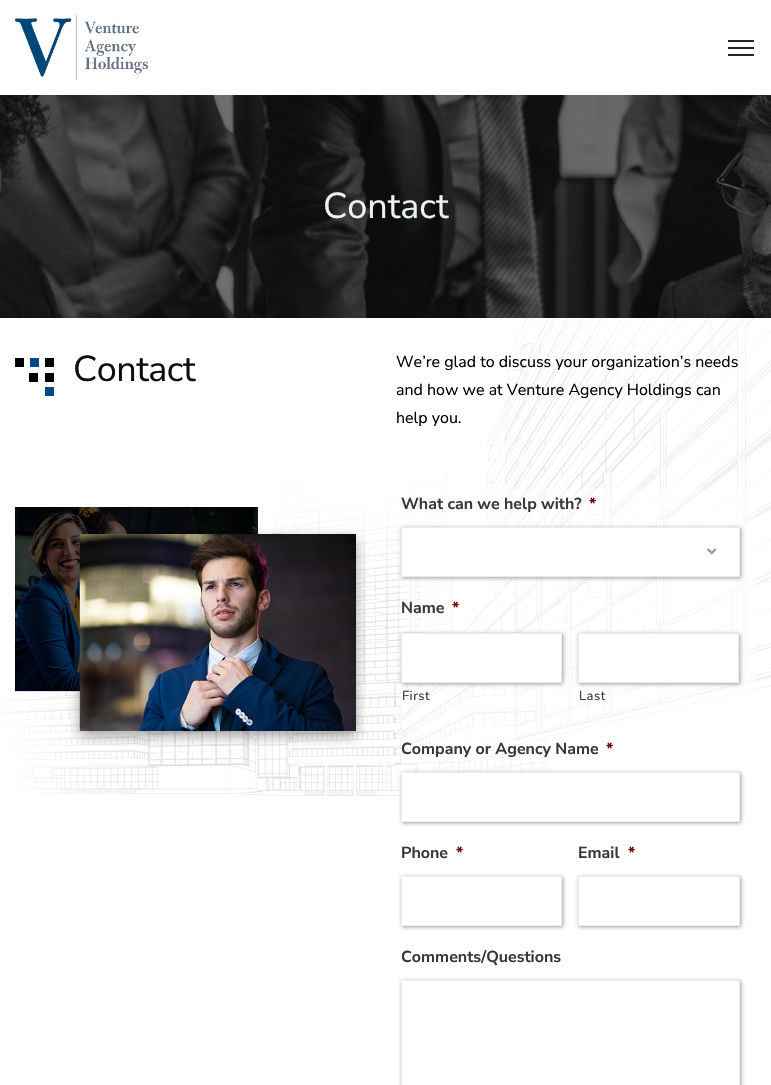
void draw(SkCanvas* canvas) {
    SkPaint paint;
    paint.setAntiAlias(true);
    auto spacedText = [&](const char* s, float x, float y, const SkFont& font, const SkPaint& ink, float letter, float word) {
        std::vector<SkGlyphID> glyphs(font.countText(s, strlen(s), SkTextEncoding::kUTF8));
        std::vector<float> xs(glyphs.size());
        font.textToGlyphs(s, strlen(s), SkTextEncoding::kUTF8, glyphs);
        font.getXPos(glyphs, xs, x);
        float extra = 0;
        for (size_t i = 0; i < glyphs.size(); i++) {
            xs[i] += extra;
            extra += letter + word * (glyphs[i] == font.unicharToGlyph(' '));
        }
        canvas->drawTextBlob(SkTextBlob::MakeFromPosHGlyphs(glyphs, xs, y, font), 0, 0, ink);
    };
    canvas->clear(0xFFFFFFFF);
    canvas->drawImageRect(SkImages::DeferredFromEncodedData(SkData::MakeFromFileName("img1.png")), SkRect::MakeXYWH(15, 15, 133, 65), SkSamplingOptions());
    paint.setColor(0xFF1F2233);
    canvas->drawRect(SkRect::MakeXYWH(728, 40, 26, 2), paint);
    canvas->drawRect(SkRect::MakeXYWH(728, 47, 26, 2), paint);
    canvas->drawRect(SkRect::MakeXYWH(728, 54, 26, 2), paint);
    canvas->drawImageRect(SkImages::DeferredFromEncodedData(SkData::MakeFromFileName("img2.png")), SkRect::MakeXYWH(0, 95, 771, 223), SkSamplingOptions());
    SkFont font1(fontMgr->matchFamilyStyle("Nunito Sans", SkFontStyle::Normal()), 36);
    font1.setSubpixel(true);
    paint.setColor(0xFFECF1F5);
    canvas->drawString("Contact", 323, 218, font1, paint);
    canvas->drawImageRect(SkImages::DeferredFromEncodedData(SkData::MakeFromFileName("img3.png")), SkRect::MakeXYWH(1, 318, 770, 478), SkSamplingOptions());
    paint.setColor(0xFF000000);
    canvas->drawRect(SkRect::MakeXYWH(15, 358, 9, 9), paint);
    paint.setColor(0xFF00488A);
    canvas->drawRect(SkRect::MakeXYWH(30, 358, 9, 9), paint);
    paint.setColor(0xFF000000);
    canvas->drawRect(SkRect::MakeXYWH(45, 358, 9, 9), paint);
    canvas->drawRect(SkRect::MakeXYWH(29, 373, 9, 9), paint);
    canvas->drawRect(SkRect::MakeXYWH(45, 373, 9, 9), paint);
    paint.setColor(0xFF00488A);
    canvas->drawRect(SkRect::MakeXYWH(45, 387, 9, 9), paint);
    paint.setColor(0xFF0E0E0E);
    spacedText("Contact", 73, 381, font1, paint, -0.5f, 0);
    SkFont font2(fontMgr->matchFamilyStyle("Nunito Sans", SkFontStyle::Normal()), 16);
    font2.setSubpixel(true);
    paint.setColor(0xFF000000);
    canvas->drawString("We’re glad to discuss your organization’s needs", 396, 367, font2, paint);
    canvas->drawString("and how we at Venture Agency Holdings can", 396, 395, font2, paint);
    canvas->drawString("help you.", 396, 423, font2, paint);
    canvas->drawImageRect(SkImages::DeferredFromEncodedData(SkData::MakeFromFileName("img4.png")), SkRect::MakeXYWH(15, 507, 351, 239), SkSamplingOptions());
    paint.setColor(0x78FFFFFF);
    canvas->drawRect(SkRect::MakeXYWH(401, 489, 355, 307), paint);
    SkFont font3(fontMgr->matchFamilyStyle("Nunito Sans", SkFontStyle::Bold()), 16);
    font3.setSubpixel(true);
    paint.setColor(0xFF383838);
    canvas->drawString("What can we help with?", 401, 509, font3, paint);
    paint.setColor(0xFF790000);
    canvas->drawString("*", 589, 509, font3, paint);
    paint.setColor(0xFF9C9C9C);
    paint.setMaskFilter(SkMaskFilter::MakeBlur(kNormal_SkBlurStyle, 2));
    canvas->drawRect(SkRect::MakeXYWH(402, 528, 339, 50), paint);
    paint.setMaskFilter(nullptr);
    paint.setColor(0xFFFFFFFF);
    canvas->drawRect(SkRect::MakeXYWH(401.5f, 527.5f, 338, 49), paint);
    paint.setStyle(SkPaint::kStroke_Style);
    paint.setStrokeWidth(1);
    paint.setColor(0xFFECECEC);
    canvas->drawRect(SkRect::MakeXYWH(401.5f, 527.5f, 338, 49), paint);
    canvas->drawImageRect(SkImages::DeferredFromEncodedData(SkData::MakeFromFileName("img5.png")), SkRect::MakeXYWH(707, 548, 10, 7), SkSamplingOptions());
    paint.setStyle(SkPaint::kFill_Style);
    paint.setColor(0xFF383838);
    canvas->drawString("Name", 401, 613, font3, paint);
    paint.setColor(0xFF790000);
    canvas->drawString("*", 452, 613, font3, paint);
    paint.setColor(0xFF9C9C9C);
    paint.setMaskFilter(SkMaskFilter::MakeBlur(kNormal_SkBlurStyle, 2));
    canvas->drawRect(SkRect::MakeXYWH(402, 634, 161, 50), paint);
    paint.setMaskFilter(nullptr);
    paint.setColor(0xFFFFFFFF);
    canvas->drawRect(SkRect::MakeXYWH(401.5f, 633.5f, 160, 49), paint);
    paint.setStyle(SkPaint::kStroke_Style);
    paint.setColor(0xFFECECEC);
    canvas->drawRect(SkRect::MakeXYWH(401.5f, 633.5f, 160, 49), paint);
    SkFont font4(fontMgr->matchFamilyStyle("Nunito Sans", SkFontStyle::Normal()), 13);
    font4.setSubpixel(true);
    paint.setStyle(SkPaint::kFill_Style);
    paint.setColor(0xFF383838);
    spacedText("First", 402, 700, font4, paint, 0.5f, 0);
    paint.setColor(0xFF9C9C9C);
    paint.setMaskFilter(SkMaskFilter::MakeBlur(kNormal_SkBlurStyle, 2));
    canvas->drawRect(SkRect::MakeXYWH(579, 634, 161, 50), paint);
    paint.setMaskFilter(nullptr);
    paint.setColor(0xFFFFFFFF);
    canvas->drawRect(SkRect::MakeXYWH(578.5f, 633.5f, 160, 49), paint);
    paint.setStyle(SkPaint::kStroke_Style);
    paint.setColor(0xFFECECEC);
    canvas->drawRect(SkRect::MakeXYWH(578.5f, 633.5f, 160, 49), paint);
    paint.setStyle(SkPaint::kFill_Style);
    paint.setColor(0xFF383838);
    spacedText("Last", 579, 700, font4, paint, 0.5f, 0);
    canvas->drawString("Company or Agency Name", 401, 754, font3, paint);
    paint.setColor(0xFF790000);
    canvas->drawString("*", 606, 754, font3, paint);
    paint.setColor(0xFF9C9C9C);
    paint.setMaskFilter(SkMaskFilter::MakeBlur(kNormal_SkBlurStyle, 2));
    canvas->drawRect(SkRect::MakeXYWH(402, 773, 339, 50), paint);
    paint.setMaskFilter(nullptr);
    paint.setColor(0xFFFFFFFF);
    canvas->drawRect(SkRect::MakeXYWH(401.5f, 772.5f, 338, 49), paint);
    paint.setStyle(SkPaint::kStroke_Style);
    paint.setColor(0xFFECECEC);
    canvas->drawRect(SkRect::MakeXYWH(401.5f, 772.5f, 338, 49), paint);
    paint.setStyle(SkPaint::kFill_Style);
    paint.setColor(0xFF383838);
    canvas->drawString("Phone", 401, 858, font3, paint);
    paint.setColor(0xFF790000);
    canvas->drawString("*", 456, 858, font3, paint);
    canvas->save();
    canvas->clipPath(SkPathBuilder(SkPathFillType::kEvenOdd).moveTo(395, 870).lineTo(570, 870).lineTo(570, 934).lineTo(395, 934).close().moveTo(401, 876).lineTo(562, 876).lineTo(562, 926).lineTo(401, 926).close().detach(), true);
    paint.setColor(0xFF9C9C9C);
    paint.setMaskFilter(SkMaskFilter::MakeBlur(kNormal_SkBlurStyle, 2));
    canvas->drawRect(SkRect::MakeXYWH(402, 877, 161, 50), paint);
    paint.setMaskFilter(nullptr);
    canvas->restore();
    paint.setStyle(SkPaint::kStroke_Style);
    paint.setColor(0xFFECECEC);
    canvas->drawRect(SkRect::MakeXYWH(401.5f, 876.5f, 160, 49), paint);
    paint.setStyle(SkPaint::kFill_Style);
    paint.setColor(0xFF383838);
    canvas->drawString("Email", 578, 858, font3, paint);
    paint.setColor(0xFF790000);
    canvas->drawString("*", 628, 858, font3, paint);
    canvas->save();
    canvas->clipPath(SkPathBuilder(SkPathFillType::kEvenOdd).moveTo(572, 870).lineTo(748, 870).lineTo(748, 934).lineTo(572, 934).close().moveTo(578, 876).lineTo(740, 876).lineTo(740, 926).lineTo(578, 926).close().detach(), true);
    paint.setColor(0xFF9C9C9C);
    paint.setMaskFilter(SkMaskFilter::MakeBlur(kNormal_SkBlurStyle, 2));
    canvas->drawRect(SkRect::MakeXYWH(579, 877, 162, 50), paint);
    paint.setMaskFilter(nullptr);
    canvas->restore();
    paint.setStyle(SkPaint::kStroke_Style);
    paint.setColor(0xFFECECEC);
    canvas->drawRect(SkRect::MakeXYWH(578.5f, 876.5f, 161, 49), paint);
    paint.setStyle(SkPaint::kFill_Style);
    paint.setColor(0xFF383838);
    canvas->drawString("Comments/Questions", 401, 962, font3, paint);
    canvas->save();
    canvas->clipPath(SkPathBuilder(SkPathFillType::kEvenOdd).moveTo(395, 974).lineTo(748, 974).lineTo(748, 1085).lineTo(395, 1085).close().moveTo(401, 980).lineTo(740, 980).lineTo(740, 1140).lineTo(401, 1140).close().detach(), true);
    paint.setColor(0xFF9C9C9C);
    paint.setMaskFilter(SkMaskFilter::MakeBlur(kNormal_SkBlurStyle, 2));
    canvas->drawRect(SkRect::MakeXYWH(402, 981, 339, 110), paint);
    paint.setMaskFilter(nullptr);
    canvas->restore();
    paint.setStyle(SkPaint::kStroke_Style);
    paint.setColor(0xFFECECEC);
    canvas->drawRect(SkRect::MakeXYWH(401.5f, 980.5f, 338, 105), paint);
}
